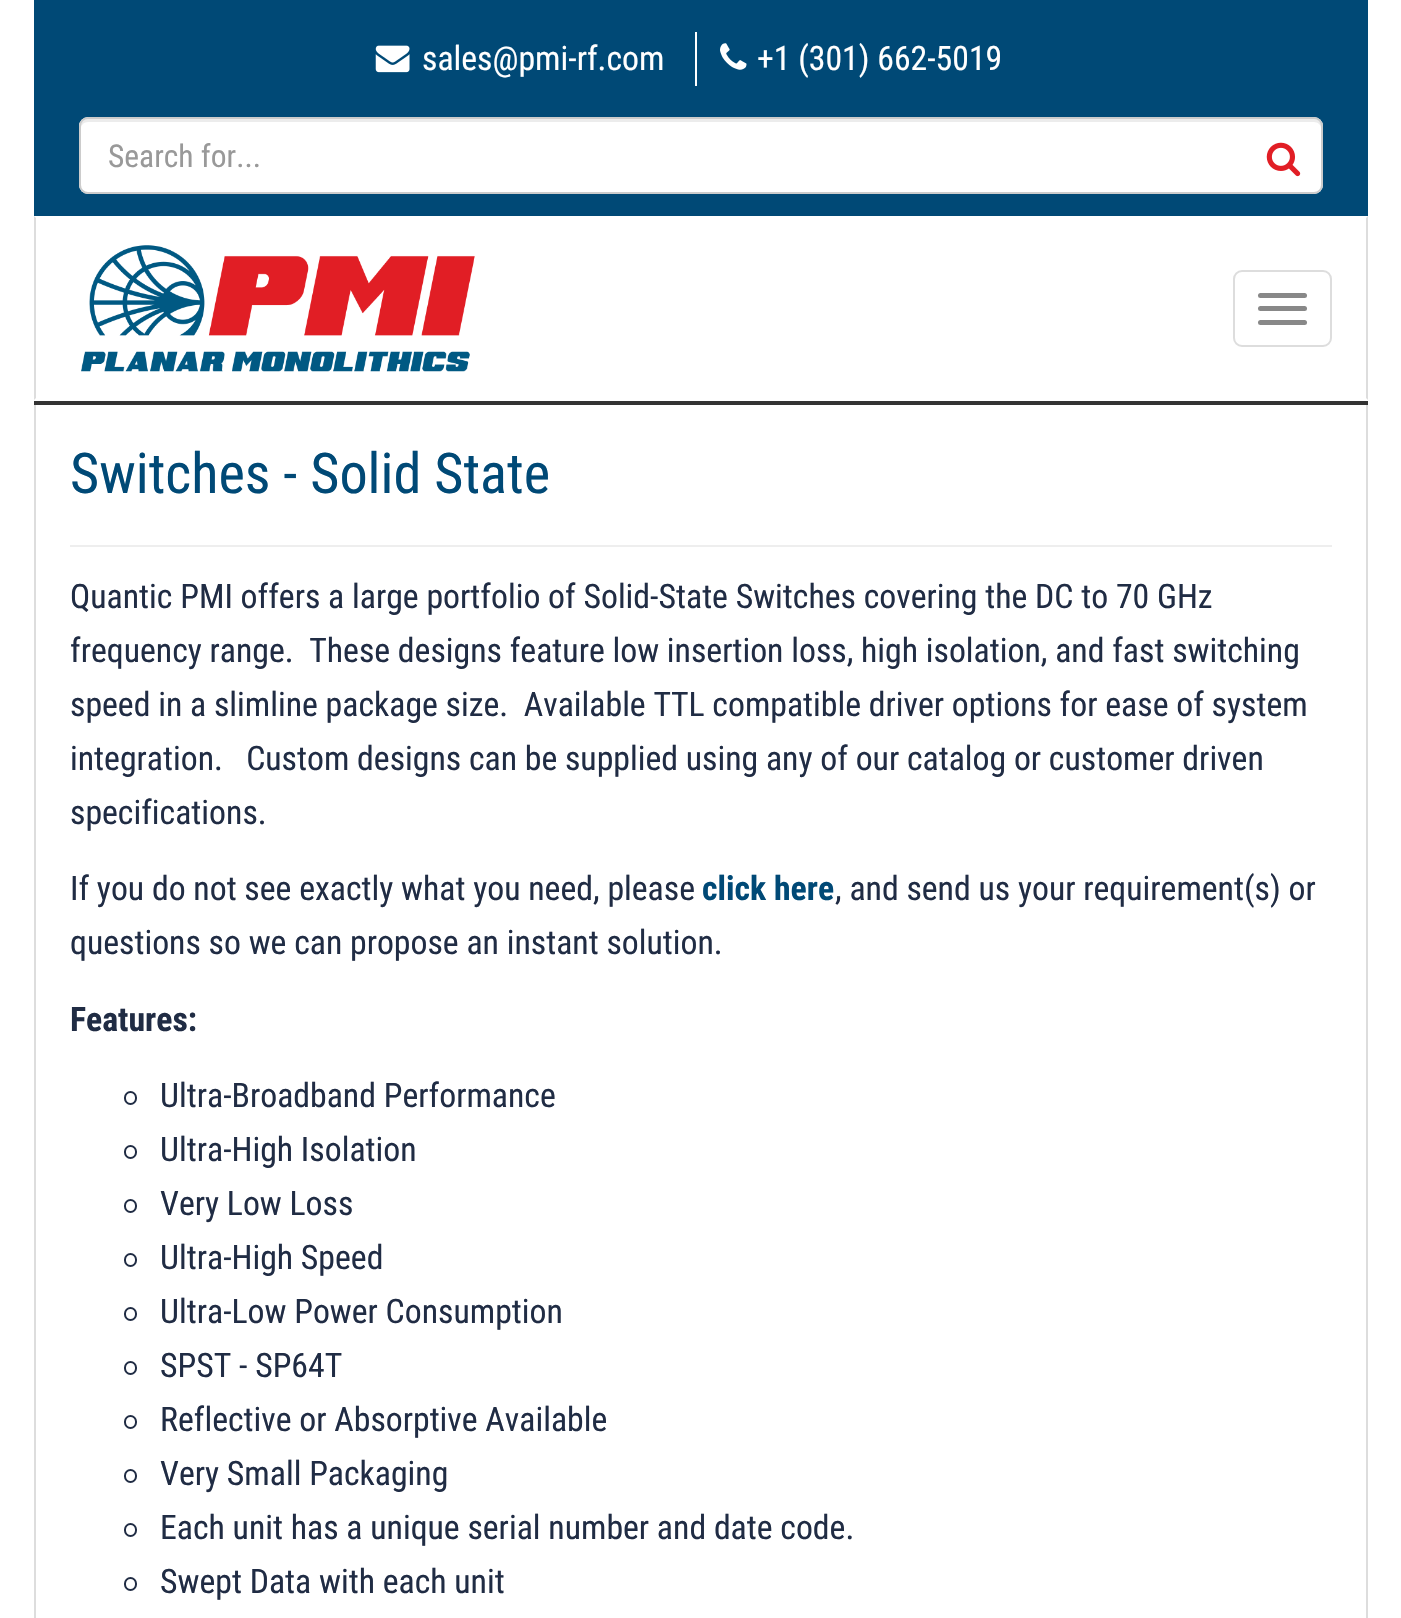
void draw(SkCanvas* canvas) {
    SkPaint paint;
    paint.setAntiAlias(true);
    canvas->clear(0xFFFFFFFF);
    paint.setColor(0xFF333333);
    canvas->drawRect(SkRect::MakeXYWH(34, 401, 1334, 4), paint);
    paint.setColor(0xFF004976);
    canvas->drawRect(SkRect::MakeXYWH(34, 0, 1334, 216), paint);
    canvas->drawImageRect(SkImages::DeferredFromEncodedData(SkData::MakeFromFileName("img1.png")), SkRect::MakeXYWH(375, 45, 35, 28), SkSamplingOptions());
    SkFont font1(fontMgr->matchFamilyStyle("Roboto Condensed", SkFontStyle::Normal()), 33.75f);
    font1.setSubpixel(true);
    paint.setColor(0xFFFFFFFF);
    canvas->drawString("sales@pmi-rf.com", 422, 70, font1, paint);
    canvas->drawRect(SkRect::MakeXYWH(695, 32, 2, 54), paint);
    canvas->drawImageRect(SkImages::DeferredFromEncodedData(SkData::MakeFromFileName("img2.png")), SkRect::MakeXYWH(720, 43, 27, 27), SkSamplingOptions());
    canvas->drawString("+1 (301) 662-5019", 757, 70, font1, paint);
    canvas->drawRoundRect(SkRect::MakeXYWH(79, 117, 1244, 77), 9, 9, paint);
    paint.setColor(0xFFECECEC);
    canvas->drawPath(SkPathBuilder().moveTo(88, 122).lineTo(1314, 122).cubicTo(1318, 122, 1321, 125, 1321, 128).lineTo(1321, 126).cubicTo(1321, 122, 1318, 119, 1314, 119).lineTo(88, 119).cubicTo(84, 119, 81, 122, 81, 126).lineTo(81, 128).cubicTo(81, 125, 84, 122, 88, 122).close().detach(), paint);
    paint.setStyle(SkPaint::kStroke_Style);
    paint.setStrokeWidth(2);
    paint.setColor(0xFFCCCCCC);
    canvas->drawRoundRect(SkRect::MakeXYWH(80, 118, 1242, 75), 8, 8, paint);
    SkFont font2(fontMgr->matchFamilyStyle("Roboto Condensed", SkFontStyle::Normal()), 31.5f);
    font2.setSubpixel(true);
    paint.setStyle(SkPaint::kFill_Style);
    paint.setColor(0xFF999999);
    canvas->drawString("Search for...", 108, 167, font2, paint);
    canvas->drawImageRect(SkImages::DeferredFromEncodedData(SkData::MakeFromFileName("img3.png")), SkRect::MakeXYWH(1266, 142, 35, 35), SkSamplingOptions());
    paint.setColor(0xFFDDDDDD);
    canvas->drawPath(SkPathBuilder().moveTo(1368, 216).lineTo(1368, 400).lineTo(1366, 398).lineTo(1366, 218).close().detach(), paint);
    canvas->drawPath(SkPathBuilder().moveTo(34, 400).lineTo(34, 216).lineTo(36, 218).lineTo(36, 398).close().detach(), paint);
    canvas->drawImageRect(SkImages::DeferredFromEncodedData(SkData::MakeFromFileName("img4.png")), SkRect::MakeXYWH(81, 245, 394, 127), SkSamplingOptions());
    paint.setStyle(SkPaint::kStroke_Style);
    canvas->drawRoundRect(SkRect::MakeXYWH(1234, 271, 97, 75), 8, 8, paint);
    paint.setStyle(SkPaint::kFill_Style);
    paint.setColor(0xFF888888);
    canvas->drawRoundRect(SkRect::MakeXYWH(1258, 293, 49, 5), 2.5f, 2.5f, paint);
    canvas->drawRoundRect(SkRect::MakeXYWH(1258, 306, 49, 5), 2.5f, 2.5f, paint);
    canvas->drawRoundRect(SkRect::MakeXYWH(1258, 320, 49, 5), 2.5f, 2.5f, paint);
    paint.setColor(0xFFDDDDDD);
    canvas->drawRect(SkRect::MakeXYWH(1366, 405, 2, 1213), paint);
    canvas->drawRect(SkRect::MakeXYWH(34, 405, 2, 1213), paint);
    paint.setColor(0xFFEEEEEE);
    canvas->drawRect(SkRect::MakeXYWH(70, 545, 1262, 2), paint);
    SkFont font3(fontMgr->matchFamilyStyle("Roboto Condensed", SkFontStyle::Normal()), 56.25f);
    font3.setSubpixel(true);
    paint.setColor(0xFF004976);
    canvas->drawString("Switches - Solid State", 70, 493, font3, paint);
    paint.setColor(0xFF202C44);
    canvas->drawString("Quantic PMI offers a large portfolio of Solid-State Switches covering the DC to 70 GHz", 70, 608, font1, paint);
    canvas->drawString("frequency range.  These designs feature low insertion loss, high isolation, and fast switching", 70, 662, font1, paint);
    canvas->drawString("speed in a slimline package size.  Available TTL compatible driver options for ease of system", 70, 716, font1, paint);
    canvas->drawString("integration.   Custom designs can be supplied using any of our catalog or customer driven", 70, 770, font1, paint);
    canvas->drawString("specifications.", 70, 824, font1, paint);
    canvas->drawString("If you do not see exactly what you need, please", 70, 900, font1, paint);
    SkFont font4(fontMgr->matchFamilyStyle("Roboto Condensed", SkFontStyle::Bold()), 33.75f);
    font4.setSubpixel(true);
    paint.setColor(0xFF004976);
    canvas->drawString("click here", 702, 900, font4, paint);
    paint.setColor(0xFF202C44);
    canvas->drawString(", and send us your requirement(s) or", 835, 900, font1, paint);
    canvas->drawString("questions so we can propose an instant solution.", 70, 954, font1, paint);
    canvas->drawString("Features:", 70, 1031, font4, paint);
    paint.setStyle(SkPaint::kStroke_Style);
    canvas->drawRoundRect(SkRect::MakeXYWH(125, 1092, 11, 12), 5.5f, 5.5f, paint);
    paint.setStyle(SkPaint::kFill_Style);
    canvas->drawString("Ultra-Broadband Performance", 160, 1107, font1, paint);
    paint.setStyle(SkPaint::kStroke_Style);
    canvas->drawRoundRect(SkRect::MakeXYWH(125, 1146, 11, 12), 5.5f, 5.5f, paint);
    paint.setStyle(SkPaint::kFill_Style);
    canvas->drawString("Ultra-High Isolation", 160, 1161, font1, paint);
    paint.setStyle(SkPaint::kStroke_Style);
    canvas->drawRoundRect(SkRect::MakeXYWH(125, 1200, 11, 12), 5.5f, 5.5f, paint);
    paint.setStyle(SkPaint::kFill_Style);
    canvas->drawString("Very Low Loss", 160, 1215, font1, paint);
    paint.setStyle(SkPaint::kStroke_Style);
    canvas->drawRoundRect(SkRect::MakeXYWH(125, 1254, 11, 12), 5.5f, 5.5f, paint);
    paint.setStyle(SkPaint::kFill_Style);
    canvas->drawString("Ultra-High Speed", 160, 1269, font1, paint);
    paint.setStyle(SkPaint::kStroke_Style);
    canvas->drawRoundRect(SkRect::MakeXYWH(125, 1308, 11, 12), 5.5f, 5.5f, paint);
    paint.setStyle(SkPaint::kFill_Style);
    canvas->drawString("Ultra-Low Power Consumption", 160, 1323, font1, paint);
    paint.setStyle(SkPaint::kStroke_Style);
    canvas->drawRoundRect(SkRect::MakeXYWH(125, 1362, 11, 12), 5.5f, 5.5f, paint);
    paint.setStyle(SkPaint::kFill_Style);
    canvas->drawString("SPST - SP64T", 160, 1377, font1, paint);
    paint.setStyle(SkPaint::kStroke_Style);
    canvas->drawRoundRect(SkRect::MakeXYWH(125, 1416, 11, 12), 5.5f, 5.5f, paint);
    paint.setStyle(SkPaint::kFill_Style);
    canvas->drawString("Reflective or Absorptive Available", 160, 1431, font1, paint);
    paint.setStyle(SkPaint::kStroke_Style);
    canvas->drawRoundRect(SkRect::MakeXYWH(125, 1470, 11, 12), 5.5f, 5.5f, paint);
    paint.setStyle(SkPaint::kFill_Style);
    canvas->drawString("Very Small Packaging", 160, 1485, font1, paint);
    paint.setStyle(SkPaint::kStroke_Style);
    canvas->drawRoundRect(SkRect::MakeXYWH(125, 1524, 11, 12), 5.5f, 5.5f, paint);
    paint.setStyle(SkPaint::kFill_Style);
    canvas->drawString("Each unit has a unique serial number and date code.", 160, 1539, font1, paint);
    paint.setStyle(SkPaint::kStroke_Style);
    canvas->drawRoundRect(SkRect::MakeXYWH(125, 1578, 11, 12), 5.5f, 5.5f, paint);
    paint.setStyle(SkPaint::kFill_Style);
    canvas->drawString("Swept Data with each unit", 160, 1593, font1, paint);
}
